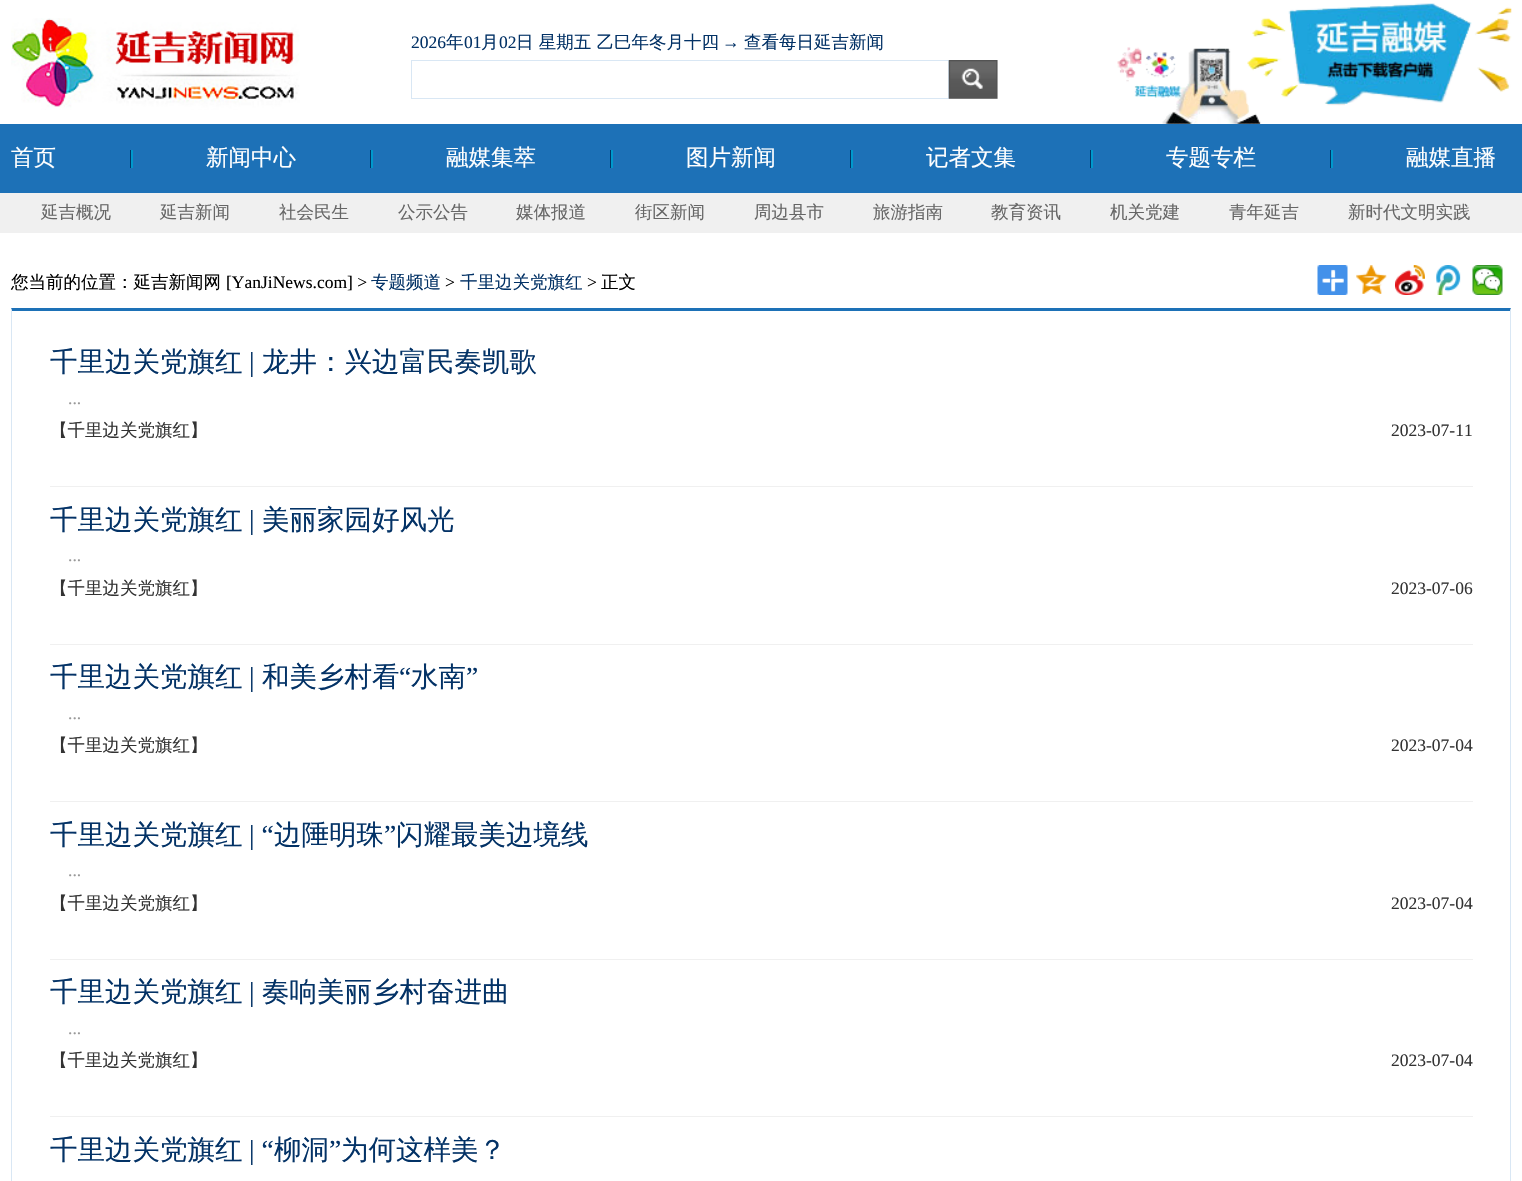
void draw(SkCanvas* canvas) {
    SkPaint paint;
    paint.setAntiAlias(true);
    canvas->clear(0xFFFFFFFF);
    canvas->drawImageRect(SkImages::DeferredFromEncodedData(SkData::MakeFromFileName("img1.png")), SkRect::MakeXYWH(11, 18, 289, 92), SkSamplingOptions());
    SkFont font1(fontMgr->matchFamilyStyle("Liberation Serif", SkFontStyle::Normal()), 17.5f);
    font1.setSubpixel(true);
    paint.setColor(0xFF033266);
    canvas->drawString("2026", 411, 48, font1, paint);
    SkFont font2(fontMgr->matchFamilyStyle("WenQuanYi Zen Hei", SkFontStyle(500, SkFontStyle::kNormal_Width, SkFontStyle::kUpright_Slant)), 17.5f);
    font2.setSubpixel(true);
    canvas->drawString("年", 446, 48, font2, paint);
    canvas->drawString("01", 464, 48, font1, paint);
    canvas->drawString("月", 481, 48, font2, paint);
    canvas->drawString("02", 499, 48, font1, paint);
    canvas->drawString("日 星期五 乙巳年冬月十四", 516, 48, font2, paint);
    canvas->drawString("→", 722, 48, font1, paint);
    canvas->drawString("查看每日延吉新闻", 744, 48, font2, paint);
    paint.setStyle(SkPaint::kStroke_Style);
    paint.setStrokeWidth(1);
    paint.setColor(0xFFD9E7F4);
    canvas->drawRect(SkRect::MakeXYWH(411.5f, 60.5f, 537, 38), paint);
    paint.setStyle(SkPaint::kFill_Style);
    paint.setColor(0xFFEFEFEF);
    canvas->drawRect(SkRect::MakeXYWH(949, 60, 49, 39), paint);
    canvas->drawImageRect(SkImages::DeferredFromEncodedData(SkData::MakeFromFileName("img2.png")), SkRect::MakeXYWH(948, 60, 50, 39), SkSamplingOptions());
    canvas->drawImageRect(SkImages::DeferredFromEncodedData(SkData::MakeFromFileName("img3.png")), SkRect::MakeXYWH(1117, 3, 395, 121), SkSamplingOptions());
    paint.setColor(0xFF1D71B7);
    canvas->drawRect(SkRect::MakeXYWH(0, 124, 1522, 69), paint);
    SkFont font3(fontMgr->matchFamilyStyle("WenQuanYi Zen Hei", SkFontStyle(500, SkFontStyle::kNormal_Width, SkFontStyle::kUpright_Slant)), 22.5f);
    font3.setSubpixel(true);
    paint.setColor(0xFFFFFFFF);
    canvas->drawString("首页", 11, 165, font3, paint);
    paint.setColor(0xFF0099CC);
    canvas->drawRect(SkRect::MakeXYWH(131, 150, 2, 18), paint);
    paint.setColor(0xFF003366);
    canvas->drawRect(SkRect::MakeXYWH(130, 150, 1, 18), paint);
    paint.setColor(0xFFFFFFFF);
    canvas->drawString("新闻中心", 206, 165, font3, paint);
    paint.setColor(0xFF0099CC);
    canvas->drawRect(SkRect::MakeXYWH(371, 150, 2, 18), paint);
    paint.setColor(0xFF003366);
    canvas->drawRect(SkRect::MakeXYWH(370, 150, 1, 18), paint);
    paint.setColor(0xFFFFFFFF);
    canvas->drawString("融媒集萃", 446, 165, font3, paint);
    paint.setColor(0xFF0099CC);
    canvas->drawRect(SkRect::MakeXYWH(611, 150, 2, 18), paint);
    paint.setColor(0xFF003366);
    canvas->drawRect(SkRect::MakeXYWH(610, 150, 1, 18), paint);
    paint.setColor(0xFFFFFFFF);
    canvas->drawString("图片新闻", 686, 165, font3, paint);
    paint.setColor(0xFF0099CC);
    canvas->drawRect(SkRect::MakeXYWH(851, 150, 2, 18), paint);
    paint.setColor(0xFF003366);
    canvas->drawRect(SkRect::MakeXYWH(850, 150, 1, 18), paint);
    paint.setColor(0xFFFFFFFF);
    canvas->drawString("记者文集", 926, 165, font3, paint);
    paint.setColor(0xFF0099CC);
    canvas->drawRect(SkRect::MakeXYWH(1091, 150, 2, 18), paint);
    paint.setColor(0xFF003366);
    canvas->drawRect(SkRect::MakeXYWH(1090, 150, 1, 18), paint);
    paint.setColor(0xFFFFFFFF);
    canvas->drawString("专题专栏", 1166, 165, font3, paint);
    paint.setColor(0xFF0099CC);
    canvas->drawRect(SkRect::MakeXYWH(1331, 150, 2, 18), paint);
    paint.setColor(0xFF003366);
    canvas->drawRect(SkRect::MakeXYWH(1330, 150, 1, 18), paint);
    paint.setColor(0xFFFFFFFF);
    canvas->drawString("融媒直播", 1406, 165, font3, paint);
    paint.setColor(0xFFF0F0F0);
    canvas->drawRect(SkRect::MakeXYWH(0, 193, 1522, 40), paint);
    paint.setColor(0xFF666666);
    canvas->drawString("延吉概况", 41, 218, font2, paint);
    canvas->drawString("延吉新闻", 160, 218, font2, paint);
    canvas->drawString("社会民生", 279, 218, font2, paint);
    canvas->drawString("公示公告", 398, 218, font2, paint);
    canvas->drawString("媒体报道", 516, 218, font2, paint);
    canvas->drawString("街区新闻", 635, 218, font2, paint);
    canvas->drawString("周边县市", 754, 218, font2, paint);
    canvas->drawString("旅游指南", 873, 218, font2, paint);
    canvas->drawString("教育资讯", 991, 218, font2, paint);
    canvas->drawString("机关党建", 1110, 218, font2, paint);
    canvas->drawString("青年延吉", 1229, 218, font2, paint);
    canvas->drawString("新时代文明实践", 1348, 218, font2, paint);
    paint.setColor(0xFF000000);
    canvas->drawString("您当前的位置：延吉新闻网", 11, 288, font2, paint);
    canvas->drawString("[YanJiNews.com] >", 226, 288, font1, paint);
    paint.setColor(0xFF033266);
    canvas->drawString("专题频道", 371, 288, font2, paint);
    paint.setColor(0xFF000000);
    canvas->drawString(">", 445, 288, font1, paint);
    paint.setColor(0xFF033266);
    canvas->drawString("千里边关党旗红", 460, 288, font2, paint);
    paint.setColor(0xFF000000);
    canvas->drawString(">", 587, 288, font1, paint);
    canvas->drawString("正文", 601, 288, font2, paint);
    canvas->drawImageRect(SkImages::DeferredFromEncodedData(SkData::MakeFromFileName("img4.png")), SkRect::MakeXYWH(1317, 265, 31, 30), SkSamplingOptions());
    canvas->drawImageRect(SkImages::DeferredFromEncodedData(SkData::MakeFromFileName("img5.png")), SkRect::MakeXYWH(1356, 265, 31, 29), SkSamplingOptions());
    canvas->drawImageRect(SkImages::DeferredFromEncodedData(SkData::MakeFromFileName("img6.png")), SkRect::MakeXYWH(1395, 265, 30, 30), SkSamplingOptions());
    canvas->drawImageRect(SkImages::DeferredFromEncodedData(SkData::MakeFromFileName("img7.png")), SkRect::MakeXYWH(1436, 265, 25, 30), SkSamplingOptions());
    canvas->drawImageRect(SkImages::DeferredFromEncodedData(SkData::MakeFromFileName("img8.png")), SkRect::MakeXYWH(1472, 265, 31, 30), SkSamplingOptions());
    paint.setColor(0xFF1D71B7);
    canvas->drawPath(SkPathBuilder().moveTo(11, 308).lineTo(1511, 308).lineTo(1510, 311).lineTo(12, 311).close().detach(), paint);
    paint.setColor(0xFFD9E7F4);
    canvas->drawPath(SkPathBuilder().moveTo(1511, 308).lineTo(1511, 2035).lineTo(1510, 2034).lineTo(1510, 311).close().detach(), paint);
    canvas->drawPath(SkPathBuilder().moveTo(11, 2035).lineTo(11, 308).lineTo(12, 311).lineTo(12, 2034).close().detach(), paint);
    paint.setColor(0xFFF0F0F0);
    canvas->drawRect(SkRect::MakeXYWH(50, 486, 1423, 1), paint);
    SkFont font4(fontMgr->matchFamilyStyle("WenQuanYi Zen Hei", SkFontStyle(500, SkFontStyle::kNormal_Width, SkFontStyle::kUpright_Slant)), 27.5f);
    font4.setSubpixel(true);
    paint.setColor(0xFF033266);
    canvas->drawString("千里边关党旗红", 50, 371, font4, paint);
    SkFont font5(fontMgr->matchFamilyStyle("Liberation Serif", SkFontStyle::Normal()), 27.5f);
    font5.setSubpixel(true);
    canvas->drawString("|", 249, 371, font5, paint);
    canvas->drawString("龙井：兴边富民奏凯歌", 262, 371, font4, paint);
    paint.setColor(0xFF999999);
    canvas->drawString("...", 68, 404, font1, paint);
    paint.setColor(0xFF333333);
    canvas->drawString("【千里边关党旗红】", 50, 436, font2, paint);
    canvas->drawString("2023-07-11", 1391, 436, font1, paint);
    paint.setColor(0xFFF0F0F0);
    canvas->drawRect(SkRect::MakeXYWH(50, 644, 1423, 1), paint);
    paint.setColor(0xFF033266);
    canvas->drawString("千里边关党旗红", 50, 529, font4, paint);
    canvas->drawString("|", 249, 529, font5, paint);
    canvas->drawString("美丽家园好风光", 262, 529, font4, paint);
    paint.setColor(0xFF999999);
    canvas->drawString("...", 68, 561, font1, paint);
    paint.setColor(0xFF333333);
    canvas->drawString("【千里边关党旗红】", 50, 594, font2, paint);
    canvas->drawString("2023-07-06", 1391, 594, font1, paint);
    paint.setColor(0xFFF0F0F0);
    canvas->drawRect(SkRect::MakeXYWH(50, 801, 1423, 1), paint);
    paint.setColor(0xFF033266);
    canvas->drawString("千里边关党旗红", 50, 686, font4, paint);
    canvas->drawString("|", 249, 686, font5, paint);
    canvas->drawString("和美乡村看", 262, 686, font4, paint);
    canvas->drawString("“", 399, 686, font5, paint);
    canvas->drawString("水南", 411, 686, font4, paint);
    canvas->drawString("”", 466, 686, font5, paint);
    paint.setColor(0xFF999999);
    canvas->drawString("...", 68, 719, font1, paint);
    paint.setColor(0xFF333333);
    canvas->drawString("【千里边关党旗红】", 50, 751, font2, paint);
    canvas->drawString("2023-07-04", 1391, 751, font1, paint);
    paint.setColor(0xFFF0F0F0);
    canvas->drawRect(SkRect::MakeXYWH(50, 959, 1423, 1), paint);
    paint.setColor(0xFF033266);
    canvas->drawString("千里边关党旗红", 50, 844, font4, paint);
    canvas->drawString("| “", 249, 844, font5, paint);
    canvas->drawString("边陲明珠", 274, 844, font4, paint);
    canvas->drawString("”", 384, 844, font5, paint);
    canvas->drawString("闪耀最美边境线", 396, 844, font4, paint);
    paint.setColor(0xFF999999);
    canvas->drawString("...", 68, 876, font1, paint);
    paint.setColor(0xFF333333);
    canvas->drawString("【千里边关党旗红】", 50, 909, font2, paint);
    canvas->drawString("2023-07-04", 1391, 909, font1, paint);
    paint.setColor(0xFFF0F0F0);
    canvas->drawRect(SkRect::MakeXYWH(50, 1116, 1423, 1), paint);
    paint.setColor(0xFF033266);
    canvas->drawString("千里边关党旗红", 50, 1001, font4, paint);
    canvas->drawString("|", 249, 1001, font5, paint);
    canvas->drawString("奏响美丽乡村奋进曲", 262, 1001, font4, paint);
    paint.setColor(0xFF999999);
    canvas->drawString("...", 68, 1034, font1, paint);
    paint.setColor(0xFF333333);
    canvas->drawString("【千里边关党旗红】", 50, 1066, font2, paint);
    canvas->drawString("2023-07-04", 1391, 1066, font1, paint);
    paint.setColor(0xFF033266);
    canvas->drawString("千里边关党旗红", 50, 1159, font4, paint);
    canvas->drawString("| “", 249, 1159, font5, paint);
    canvas->drawString("柳洞", 274, 1159, font4, paint);
    canvas->drawString("”", 329, 1159, font5, paint);
    canvas->drawString("为何这样美？", 341, 1159, font4, paint);
}
